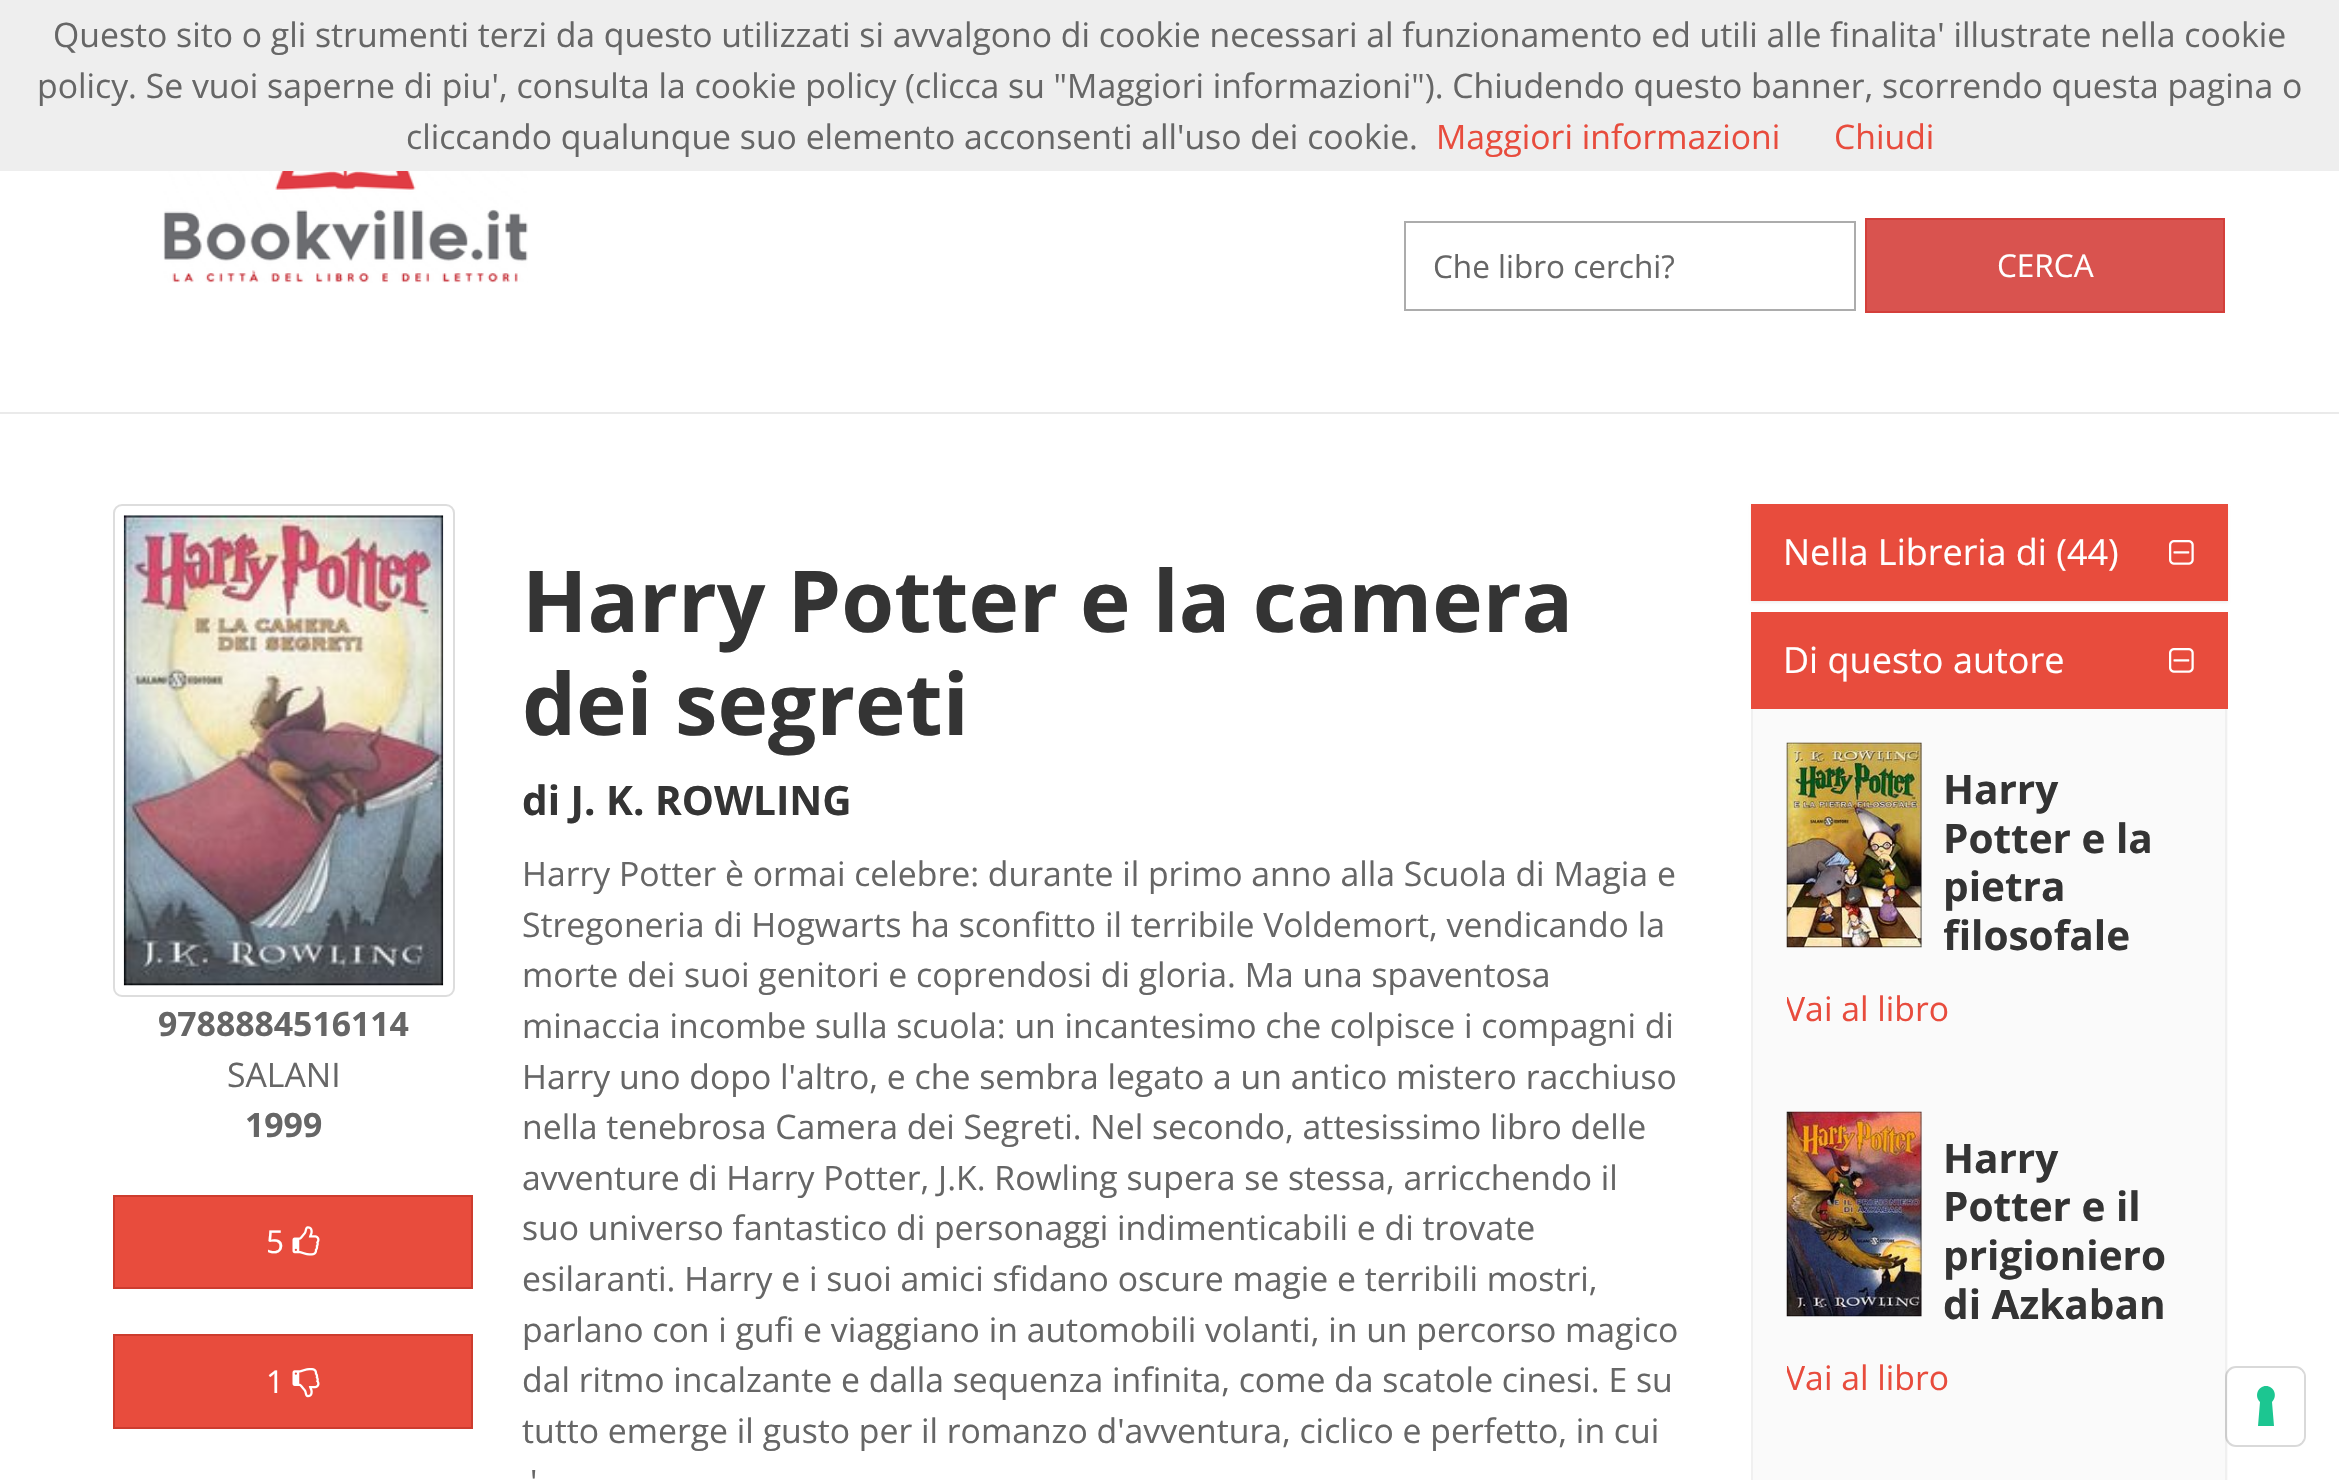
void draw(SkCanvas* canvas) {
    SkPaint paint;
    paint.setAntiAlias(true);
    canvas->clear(0xFFFFFFFF);
    paint.setColor(0xFFEEEEEE);
    canvas->drawRect(SkRect::MakeXYWH(0, 0, 2339, 171), paint);
    SkFont font1(fontMgr->matchFamilyStyle("Open Sans", SkFontStyle::Normal()), 33.75f);
    font1.setSubpixel(true);
    paint.setColor(0xFF666666);
    canvas->drawString("Questo sito o gli strumenti terzi da questo utilizzati si avvalgono di cookie necessari al funzionamento ed utili alle finalita' illustrate nella cookie", 53, 47, font1, paint);
    canvas->drawString("policy. Se vuoi saperne di piu', consulta la cookie policy (clicca su \"Maggiori informazioni\"). Chiudendo questo banner, scorrendo questa pagina o", 37, 98, font1, paint);
    canvas->drawString("cliccando qualunque suo elemento acconsenti all'uso dei cookie.", 406, 149, font1, paint);
    paint.setColor(0xFFE84C3D);
    canvas->drawString("Maggiori informazioni", 1436, 149, font1, paint);
    canvas->drawString("Chiudi", 1834, 149, font1, paint);
    paint.setColor(0xFFEAEAEA);
    canvas->drawRect(SkRect::MakeXYWH(0, 412, 2339, 2), paint);
    canvas->drawImageRect(SkImages::DeferredFromEncodedData(SkData::MakeFromFileName("img1.png")), SkRect::MakeXYWH(163, 171, 365, 112), SkSamplingOptions());
    paint.setStyle(SkPaint::kStroke_Style);
    paint.setStrokeWidth(2);
    paint.setColor(0xFFACACAC);
    canvas->drawRect(SkRect::MakeXYWH(1405, 222, 450, 88), paint);
    SkFont font2(fontMgr->matchFamilyStyle("Open Sans", SkFontStyle::Normal()), 31.5f);
    font2.setSubpixel(true);
    paint.setStyle(SkPaint::kFill_Style);
    paint.setColor(0xFF666666);
    canvas->drawString("Che libro cerchi?", 1433, 278, font2, paint);
    paint.setColor(0xFFD9534F);
    canvas->drawRect(SkRect::MakeXYWH(1866, 219, 358, 93), paint);
    paint.setStyle(SkPaint::kStroke_Style);
    paint.setColor(0xFFD43F3A);
    canvas->drawRect(SkRect::MakeXYWH(1866, 219, 358, 93), paint);
    paint.setStyle(SkPaint::kFill_Style);
    paint.setColor(0xFFFFFFFF);
    canvas->drawString("CERCA", 1997, 277, font2, paint);
    paint.setStyle(SkPaint::kStroke_Style);
    paint.setColor(0xFFDDDDDD);
    canvas->drawRoundRect(SkRect::MakeXYWH(114, 505, 340, 491), 8, 8, paint);
    canvas->drawImageRect(SkImages::DeferredFromEncodedData(SkData::MakeFromFileName("img2.png")), SkRect::MakeXYWH(123, 515, 321, 471), SkSamplingOptions());
    SkFont font3(fontMgr->matchFamilyStyle("Open Sans", SkFontStyle::Bold()), 33.75f);
    font3.setSubpixel(true);
    paint.setStyle(SkPaint::kFill_Style);
    paint.setColor(0xFF666666);
    canvas->drawString("9788884516114", 158, 1036, font3, paint);
    canvas->drawString("SALANI", 227, 1087, font1, paint);
    canvas->drawString("1999", 245, 1137, font3, paint);
    paint.setColor(0xFFE84C3D);
    canvas->drawRect(SkRect::MakeXYWH(114, 1196, 358, 92), paint);
    paint.setStyle(SkPaint::kStroke_Style);
    paint.setColor(0xFFCD3C2E);
    canvas->drawRect(SkRect::MakeXYWH(114, 1196, 358, 92), paint);
    paint.setStyle(SkPaint::kFill_Style);
    paint.setColor(0xFFFFFFFF);
    canvas->drawString("5", 266, 1253, font2, paint);
    canvas->drawImageRect(SkImages::DeferredFromEncodedData(SkData::MakeFromFileName("img3.png")), SkRect::MakeXYWH(292, 1226, 28, 30), SkSamplingOptions());
    paint.setColor(0xFFE84C3D);
    canvas->drawRect(SkRect::MakeXYWH(114, 1335, 358, 93), paint);
    paint.setStyle(SkPaint::kStroke_Style);
    paint.setColor(0xFFCD3C2E);
    canvas->drawRect(SkRect::MakeXYWH(114, 1335, 358, 93), paint);
    paint.setStyle(SkPaint::kFill_Style);
    paint.setColor(0xFFFFFFFF);
    canvas->drawString("1", 266, 1393, font2, paint);
    canvas->drawImageRect(SkImages::DeferredFromEncodedData(SkData::MakeFromFileName("img4.png")), SkRect::MakeXYWH(292, 1368, 28, 30), SkSamplingOptions());
    SkFont font4(fontMgr->matchFamilyStyle("Open Sans", SkFontStyle::Bold()), 85.5f);
    font4.setSubpixel(true);
    paint.setColor(0xFF343434);
    canvas->drawString("Harry Potter e la camera", 522, 632, font4, paint);
    canvas->drawString("dei segreti", 522, 735, font4, paint);
    SkFont font5(fontMgr->matchFamilyStyle("Open Sans", SkFontStyle::Bold()), 40.5f);
    font5.setSubpixel(true);
    canvas->drawString("di J. K. ROWLING", 522, 815, font5, paint);
    paint.setColor(0xFF666666);
    canvas->drawString("Harry Potter è ormai celebre: durante il primo anno alla Scuola di Magia e", 522, 886, font1, paint);
    canvas->drawString("Stregoneria di Hogwarts ha sconfitto il terribile Voldemort, vendicando la", 522, 937, font1, paint);
    canvas->drawString("morte dei suoi genitori e coprendosi di gloria. Ma una spaventosa", 522, 987, font1, paint);
    canvas->drawString("minaccia incombe sulla scuola: un incantesimo che colpisce i compagni di", 522, 1038, font1, paint);
    canvas->drawString("Harry uno dopo l'altro, e che sembra legato a un antico mistero racchiuso", 522, 1089, font1, paint);
    canvas->drawString("nella tenebrosa Camera dei Segreti. Nel secondo, attesissimo libro delle", 522, 1139, font1, paint);
    canvas->drawString("avventure di Harry Potter, J.K. Rowling supera se stessa, arricchendo il", 522, 1190, font1, paint);
    canvas->drawString("suo universo fantastico di personaggi indimenticabili e di trovate", 522, 1240, font1, paint);
    canvas->drawString("esilaranti. Harry e i suoi amici sfidano oscure magie e terribili mostri,", 522, 1291, font1, paint);
    canvas->drawString("parlano con i gufi e viaggiano in automobili volanti, in un percorso magico", 522, 1342, font1, paint);
    canvas->drawString("dal ritmo incalzante e dalla sequenza infinita, come da scatole cinesi. E su", 522, 1392, font1, paint);
    canvas->drawString("tutto emerge il gusto per il romanzo d'avventura, ciclico e perfetto, in cui", 522, 1443, font1, paint);
    canvas->drawString("'", 530, 1494, font1, paint);
    paint.setColor(0x0D000000);
    paint.setMaskFilter(SkMaskFilter::MakeBlur(kNormal_SkBlurStyle, 1));
    canvas->drawRect(SkRect::MakeXYWH(1751, 506, 477, 97), paint);
    paint.setMaskFilter(nullptr);
    paint.setColor(0xFFE84C3D);
    canvas->drawRect(SkRect::MakeXYWH(1751, 504, 477, 97), paint);
    SkFont font6(fontMgr->matchFamilyStyle("Open Sans", SkFontStyle::Normal()), 36);
    font6.setSubpixel(true);
    paint.setColor(0xFFFFFFFF);
    canvas->drawString("Nella Libreria di (44)", 1783, 565, font6, paint);
    canvas->drawImageRect(SkImages::DeferredFromEncodedData(SkData::MakeFromFileName("img5.png")), SkRect::MakeXYWH(2169, 540, 25, 25), SkSamplingOptions());
    paint.setColor(0xFFE84C3D);
    canvas->drawRect(SkRect::MakeXYWH(1751, 612, 477, 97), paint);
    paint.setColor(0xFFFFFFFF);
    canvas->drawString("Di questo autore", 1783, 673, font6, paint);
    canvas->drawImageRect(SkImages::DeferredFromEncodedData(SkData::MakeFromFileName("img5.png")), SkRect::MakeXYWH(2169, 648, 25, 25), SkSamplingOptions());
    paint.setColor(0xFFFAFAFA);
    canvas->drawRect(SkRect::MakeXYWH(1753, 709, 475, 771), paint);
    paint.setColor(0xFFF0F0F0);
    canvas->drawRect(SkRect::MakeXYWH(2225, 709, 2, 771), paint);
    canvas->drawRect(SkRect::MakeXYWH(1751, 709, 2, 771), paint);
    canvas->drawImageRect(SkImages::DeferredFromEncodedData(SkData::MakeFromFileName("img6.png")), SkRect::MakeXYWH(1786, 742, 136, 206), SkSamplingOptions());
    paint.setColor(0xFF343434);
    canvas->drawString("Harry", 1943, 804, font5, paint);
    canvas->drawString("Potter e la", 1943, 853, font5, paint);
    canvas->drawString("pietra", 1943, 901, font5, paint);
    canvas->save();
    canvas->clipRect(SkRect::MakeXYWH(1944, 743, 248, 240));
    canvas->drawString("filosofale", 1943, 950, font5, paint);
    canvas->restore();
    canvas->save();
    canvas->clipRect(SkRect::MakeXYWH(1787, 743, 405, 335));
    paint.setColor(0xFFE84C3D);
    canvas->drawString("Vai al libro", 1785, 1021, font1, paint);
    canvas->restore();
    canvas->drawImageRect(SkImages::DeferredFromEncodedData(SkData::MakeFromFileName("img7.png")), SkRect::MakeXYWH(1786, 1111, 136, 206), SkSamplingOptions());
    paint.setColor(0xFF343434);
    canvas->drawString("Harry", 1943, 1173, font5, paint);
    canvas->drawString("Potter e il", 1943, 1221, font5, paint);
    canvas->drawString("prigioniero", 1943, 1270, font5, paint);
    canvas->drawString("di Azkaban", 1943, 1319, font5, paint);
    canvas->save();
    canvas->clipRect(SkRect::MakeXYWH(1787, 1112, 405, 335));
    paint.setColor(0xFFE84C3D);
    canvas->drawString("Vai al libro", 1785, 1390, font1, paint);
    canvas->restore();
    paint.setStyle(SkPaint::kStroke_Style);
    paint.setColor(0x26000000);
    canvas->drawRoundRect(SkRect::MakeXYWH(2226, 1367, 79, 79), 10, 10, paint);
    paint.setStyle(SkPaint::kFill_Style);
    paint.setColor(0xFFFFFFFF);
    canvas->drawRoundRect(SkRect::MakeXYWH(2228, 1368, 76, 77), 9, 9, paint);
    paint.setColor(0xFF1CC691);
    canvas->drawPath(SkPathBuilder(SkPathFillType::kEvenOdd).moveTo(2266, 1386).cubicTo(2274, 1386, 2278, 1396, 2272, 1402).lineTo(2274, 1426).lineTo(2258, 1426).lineTo(2260, 1402).cubicTo(2254, 1396, 2258, 1386, 2266, 1386).close().detach(), paint);
}
